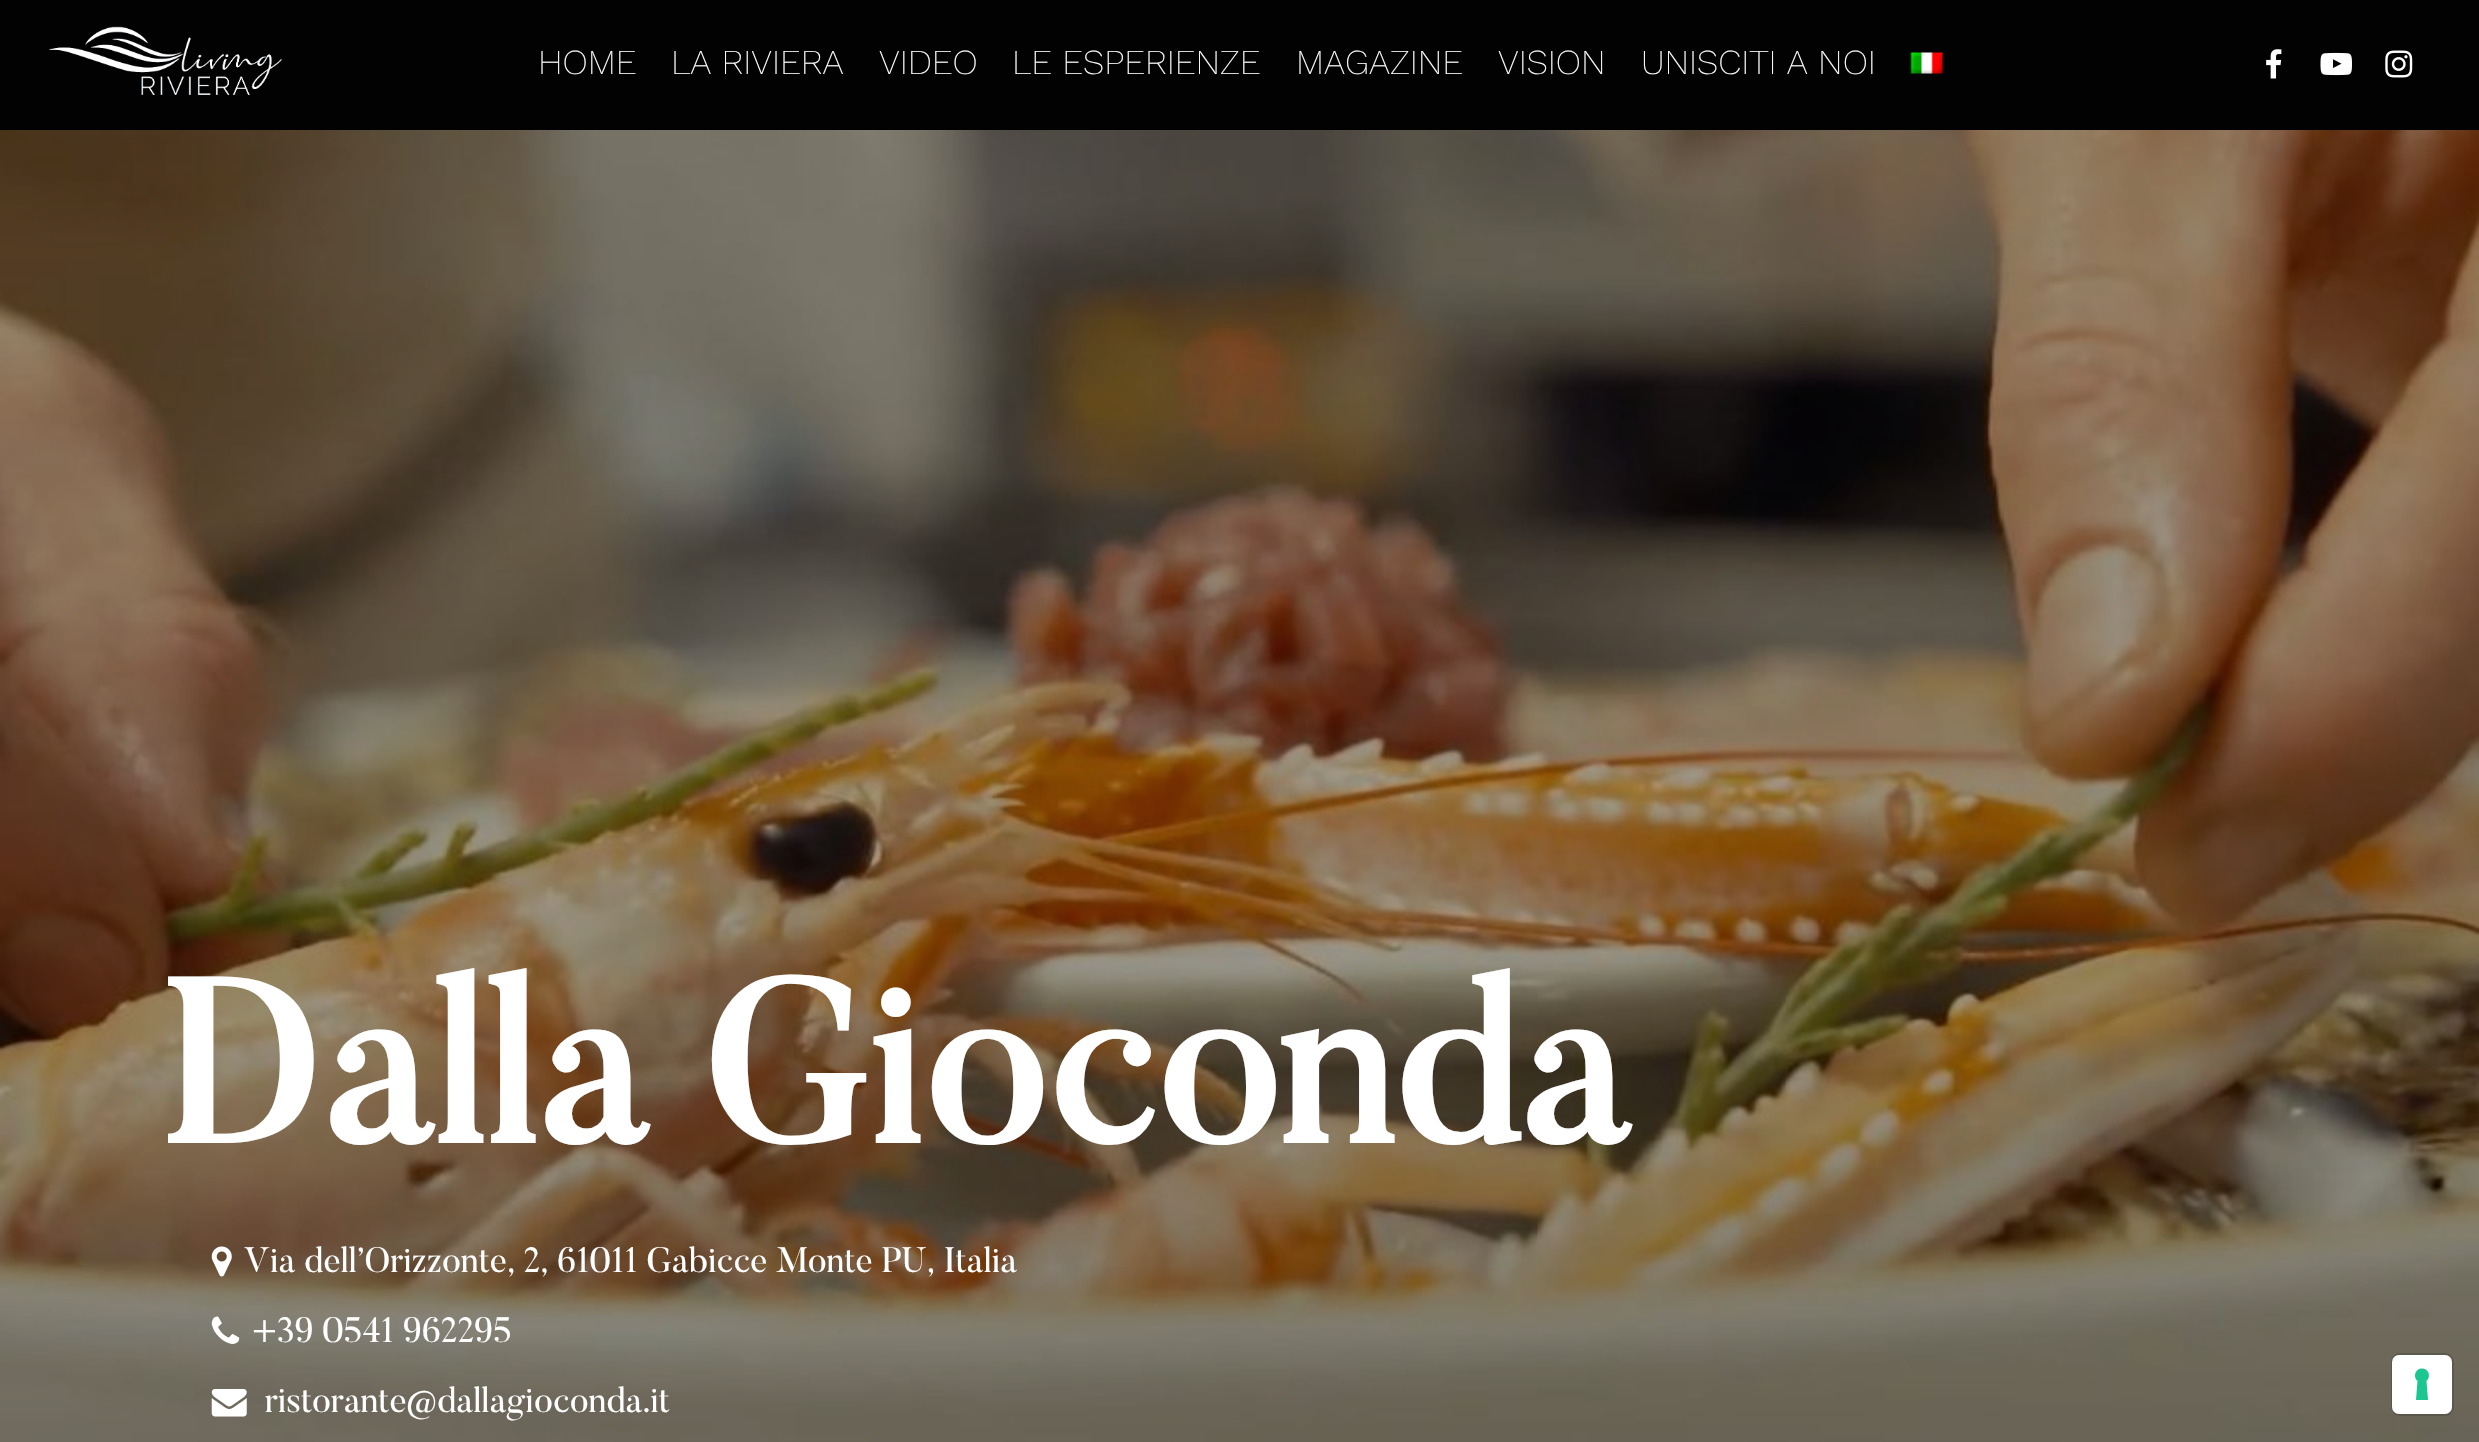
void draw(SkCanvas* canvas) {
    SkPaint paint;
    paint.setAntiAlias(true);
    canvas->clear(0xFF020202);
    canvas->drawImageRect(SkImages::DeferredFromEncodedData(SkData::MakeFromFileName("img1.png")), SkRect::MakeXYWH(49, 26, 233, 69), SkSamplingOptions());
    SkFont font1(fontMgr->matchFamilyStyle("Work Sans", SkFontStyle(200, SkFontStyle::kNormal_Width, SkFontStyle::kUpright_Slant)), 35);
    font1.setSubpixel(true);
    paint.setColor(0xFFFFFFFF);
    canvas->drawString("HOME", 538, 74, font1, paint);
    canvas->drawString("LA RIVIERA", 671, 74, font1, paint);
    canvas->drawString("VIDEO", 879, 74, font1, paint);
    canvas->drawString("LE ESPERIENZE", 1012, 74, font1, paint);
    canvas->drawString("MAGAZINE", 1296, 74, font1, paint);
    canvas->drawString("VISION", 1498, 74, font1, paint);
    canvas->drawString("UNISCITI A NOI", 1641, 74, font1, paint);
    canvas->drawImageRect(SkImages::DeferredFromEncodedData(SkData::MakeFromFileName("img2.png")), SkRect::MakeXYWH(1910, 52, 33, 22), SkSamplingOptions());
    canvas->drawImageRect(SkImages::DeferredFromEncodedData(SkData::MakeFromFileName("img3.png")), SkRect::MakeXYWH(2266, 49, 16, 30), SkSamplingOptions());
    canvas->drawImageRect(SkImages::DeferredFromEncodedData(SkData::MakeFromFileName("img4.png")), SkRect::MakeXYWH(2320, 52, 32, 24), SkSamplingOptions());
    canvas->drawImageRect(SkImages::DeferredFromEncodedData(SkData::MakeFromFileName("img5.png")), SkRect::MakeXYWH(2385, 50, 28, 28), SkSamplingOptions());
    canvas->drawImageRect(SkImages::DeferredFromEncodedData(SkData::MakeFromFileName("img6.png")), SkRect::MakeXYWH(0, 130, 2479, 1312), SkSamplingOptions());
    SkFont font2(fontMgr->matchFamilyStyle("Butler", SkFontStyle::Bold()), 227.5f);
    font2.setSubpixel(true);
    canvas->drawString("Dalla Gioconda", 158, 1143, font2, paint);
    canvas->drawImageRect(SkImages::DeferredFromEncodedData(SkData::MakeFromFileName("img7.png")), SkRect::MakeXYWH(211, 1246, 21, 31), SkSamplingOptions());
    SkFont font3(fontMgr->matchFamilyStyle("Butler", SkFontStyle::Normal()), 35);
    font3.setSubpixel(true);
    canvas->drawString("Via dell’Orizzonte, 2, 61011 Gabicce Monte PU, Italia", 244, 1272, font3, paint);
    canvas->drawImageRect(SkImages::DeferredFromEncodedData(SkData::MakeFromFileName("img8.png")), SkRect::MakeXYWH(211, 1316, 29, 28), SkSamplingOptions());
    canvas->drawString("+39 0541 962295", 252, 1342, font3, paint);
    canvas->drawImageRect(SkImages::DeferredFromEncodedData(SkData::MakeFromFileName("img9.png")), SkRect::MakeXYWH(211, 1389, 36, 28), SkSamplingOptions());
    canvas->drawString("ristorante@dallagioconda.it", 265, 1412, font3, paint);
    paint.setStyle(SkPaint::kStroke_Style);
    paint.setStrokeWidth(2);
    paint.setColor(0x26000000);
    canvas->drawRoundRect(SkRect::MakeXYWH(2392, 1354, 61, 61), 8, 8, paint);
    paint.setStyle(SkPaint::kFill_Style);
    paint.setColor(0xFFFFFFFF);
    canvas->drawRoundRect(SkRect::MakeXYWH(2392, 1355, 60, 59), 7, 7, paint);
    paint.setColor(0xFF1CC691);
    canvas->drawPath(SkPathBuilder(SkPathFillType::kEvenOdd).moveTo(2422, 1368.5f).cubicTo(2428.5f, 1368.5f, 2431.5f, 1376.5f, 2426.5f, 1381).lineTo(2428, 1400).lineTo(2416, 1400).lineTo(2417.5f, 1381).cubicTo(2412.5f, 1376.5f, 2415.5f, 1368.5f, 2422, 1368.5f).close().detach(), paint);
}
